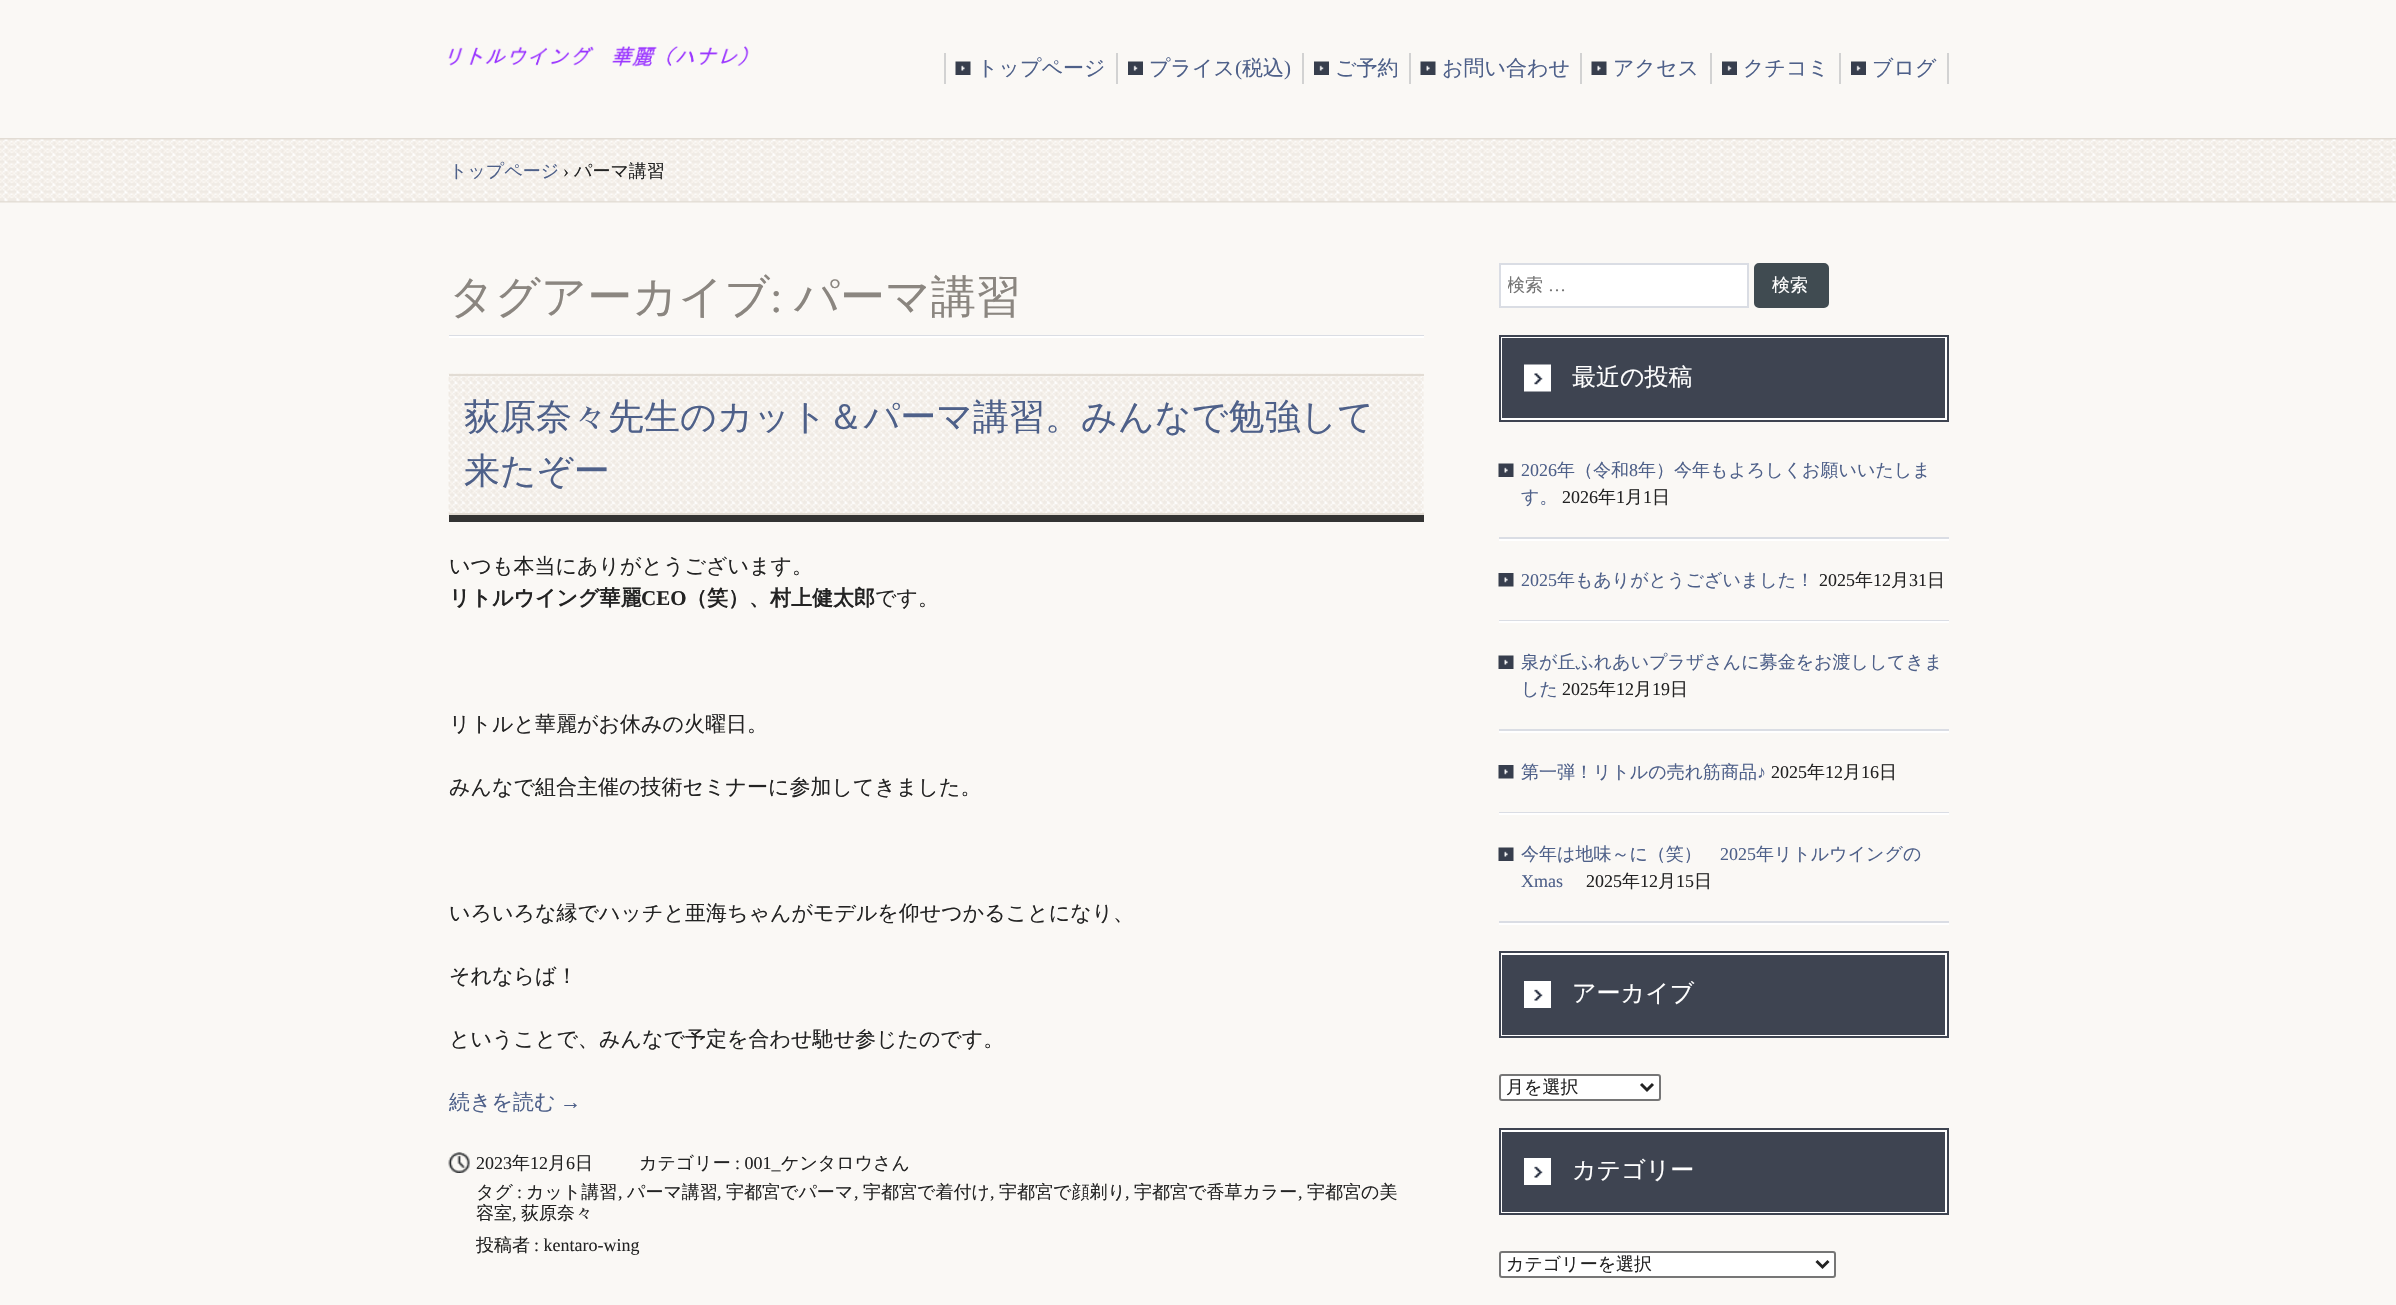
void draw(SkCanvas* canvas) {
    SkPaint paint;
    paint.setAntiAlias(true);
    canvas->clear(0xFFFAF8F5);
    canvas->drawImageRect(SkImages::DeferredFromEncodedData(SkData::MakeFromFileName("img1.png")), SkRect::MakeXYWH(0, 138, 2396, 65), SkSamplingOptions());
    canvas->drawImageRect(SkImages::DeferredFromEncodedData(SkData::MakeFromFileName("img2.png")), SkRect::MakeXYWH(448, 46, 301, 21), SkSamplingOptions());
    paint.setColor(0xFFD2D2D2);
    canvas->drawRect(SkRect::MakeXYWH(1116, 53, 2, 31), paint);
    canvas->drawRect(SkRect::MakeXYWH(944, 53, 2, 31), paint);
    canvas->drawImageRect(SkImages::DeferredFromEncodedData(SkData::MakeFromFileName("img3.png")), SkRect::MakeXYWH(955, 61, 16, 14), SkSamplingOptions());
    SkFont font1(fontMgr->matchFamilyStyle("WenQuanYi Zen Hei", SkFontStyle(500, SkFontStyle::kNormal_Width, SkFontStyle::kUpright_Slant)), 21);
    font1.setSubpixel(true);
    paint.setColor(0xFF4E6089);
    canvas->drawString("トップページ", 977, 75, font1, paint);
    paint.setColor(0xFFD2D2D2);
    canvas->drawRect(SkRect::MakeXYWH(1302, 53, 2, 31), paint);
    canvas->drawImageRect(SkImages::DeferredFromEncodedData(SkData::MakeFromFileName("img4.png")), SkRect::MakeXYWH(1128, 61, 15, 14), SkSamplingOptions());
    paint.setColor(0xFF4E6089);
    canvas->drawString("プライス", 1149, 75, font1, paint);
    SkFont font2(fontMgr->matchFamilyStyle("Liberation Serif", SkFontStyle::Normal()), 21);
    font2.setSubpixel(true);
    canvas->drawString("(", 1235, 75, font2, paint);
    canvas->drawString("税込", 1242, 75, font1, paint);
    canvas->drawString(")", 1284, 75, font2, paint);
    paint.setColor(0xFFD2D2D2);
    canvas->drawRect(SkRect::MakeXYWH(1409, 53, 2, 31), paint);
    canvas->drawImageRect(SkImages::DeferredFromEncodedData(SkData::MakeFromFileName("img5.png")), SkRect::MakeXYWH(1314, 61, 15, 14), SkSamplingOptions());
    paint.setColor(0xFF4E6089);
    canvas->drawString("ご予約", 1335, 75, font1, paint);
    paint.setColor(0xFFD2D2D2);
    canvas->drawRect(SkRect::MakeXYWH(1580, 53, 2, 31), paint);
    canvas->drawImageRect(SkImages::DeferredFromEncodedData(SkData::MakeFromFileName("img6.png")), SkRect::MakeXYWH(1420, 61, 16, 14), SkSamplingOptions());
    paint.setColor(0xFF4E6089);
    canvas->drawString("お問い合わせ", 1442, 75, font1, paint);
    paint.setColor(0xFFD2D2D2);
    canvas->drawRect(SkRect::MakeXYWH(1710, 53, 2, 31), paint);
    canvas->drawImageRect(SkImages::DeferredFromEncodedData(SkData::MakeFromFileName("img3.png")), SkRect::MakeXYWH(1591, 61, 16, 14), SkSamplingOptions());
    paint.setColor(0xFF4E6089);
    canvas->drawString("アクセス", 1613, 75, font1, paint);
    paint.setColor(0xFFD2D2D2);
    canvas->drawRect(SkRect::MakeXYWH(1839, 53, 2, 31), paint);
    canvas->drawImageRect(SkImages::DeferredFromEncodedData(SkData::MakeFromFileName("img5.png")), SkRect::MakeXYWH(1722, 61, 15, 14), SkSamplingOptions());
    paint.setColor(0xFF4E6089);
    canvas->drawString("クチコミ", 1743, 75, font1, paint);
    paint.setColor(0xFFD2D2D2);
    canvas->drawRect(SkRect::MakeXYWH(1947, 53, 2, 31), paint);
    canvas->drawImageRect(SkImages::DeferredFromEncodedData(SkData::MakeFromFileName("img4.png")), SkRect::MakeXYWH(1851, 61, 15, 14), SkSamplingOptions());
    paint.setColor(0xFF4E6089);
    canvas->drawString("ブログ", 1872, 75, font1, paint);
    SkFont font3(fontMgr->matchFamilyStyle("WenQuanYi Zen Hei", SkFontStyle(500, SkFontStyle::kNormal_Width, SkFontStyle::kUpright_Slant)), 18);
    font3.setSubpixel(true);
    canvas->drawString("トップページ", 449, 177, font3, paint);
    SkFont font4(fontMgr->matchFamilyStyle("Liberation Serif", SkFontStyle::Normal()), 18);
    font4.setSubpixel(true);
    paint.setColor(0xFF232323);
    canvas->drawString("›", 563, 177, font4, paint);
    canvas->drawString("パーマ講習", 574, 177, font3, paint);
    paint.setColor(0xFFDADDE4);
    canvas->drawRect(SkRect::MakeXYWH(449, 335, 975, 1), paint);
    paint.setColor(0xFFFFFFFF);
    canvas->drawRect(SkRect::MakeXYWH(449, 336, 975, 2), paint);
    SkFont font5(fontMgr->matchFamilyStyle("WenQuanYi Zen Hei", SkFontStyle(500, SkFontStyle::kNormal_Width, SkFontStyle::kUpright_Slant)), 45);
    font5.setSubpixel(true);
    paint.setColor(0xFF8B8680);
    canvas->drawString("タグアーカイブ", 449, 312, font5, paint);
    SkFont font6(fontMgr->matchFamilyStyle("Liberation Serif", SkFontStyle::Normal()), 45);
    font6.setSubpixel(true);
    canvas->drawString(":", 770, 312, font6, paint);
    canvas->drawString("パーマ講習", 794, 312, font5, paint);
    paint.setColor(0xFF333333);
    canvas->drawPath(SkPathBuilder().moveTo(449, 514).lineTo(449, 522).lineTo(1424, 522).lineTo(1424, 381).lineTo(1424, 514).close().detach(), paint);
    canvas->drawImageRect(SkImages::DeferredFromEncodedData(SkData::MakeFromFileName("img7.png")), SkRect::MakeXYWH(448, 373, 976, 142), SkSamplingOptions());
    paint.setColor(0xFFE2DCD4);
    canvas->drawRect(SkRect::MakeXYWH(449, 374, 975, 2), paint);
    canvas->drawRect(SkRect::MakeXYWH(449, 513, 975, 2), paint);
    SkFont font7(fontMgr->matchFamilyStyle("WenQuanYi Zen Hei", SkFontStyle(500, SkFontStyle::kNormal_Width, SkFontStyle::kUpright_Slant)), 36);
    font7.setSubpixel(true);
    paint.setColor(0xFF4E6089);
    canvas->drawString("荻原奈々先生のカット＆パーマ講習。みんなで勉強して", 464, 429, font7, paint);
    canvas->drawString("来たぞー", 464, 483, font7, paint);
    paint.setColor(0xFF232323);
    canvas->drawString("いつも本当にありがとうございます。", 449, 573, font1, paint);
    SkFont font8(fontMgr->matchFamilyStyle("WenQuanYi Zen Hei", SkFontStyle::Bold()), 21);
    font8.setSubpixel(true);
    canvas->drawString("リトルウイング華麗", 449, 605, font8, paint);
    SkFont font9(fontMgr->matchFamilyStyle("Liberation Serif", SkFontStyle::Bold()), 21);
    font9.setSubpixel(true);
    canvas->drawString("CEO", 641, 605, font9, paint);
    canvas->drawString("（笑）、村上健太郎", 686, 605, font8, paint);
    canvas->drawString("です。", 875, 605, font1, paint);
    canvas->drawString("リトルと華麗がお休みの火曜日。", 449, 731, font1, paint);
    canvas->drawString("みんなで組合主催の技術セミナーに参加してきました。", 449, 794, font1, paint);
    canvas->drawString("いろいろな縁でハッチと亜海ちゃんがモデルを仰せつかることになり、", 449, 920, font1, paint);
    canvas->drawString("それならば！", 449, 983, font1, paint);
    canvas->drawString("ということで、みんなで予定を合わせ馳せ参じたのです。", 449, 1046, font1, paint);
    paint.setColor(0xFF4E6089);
    canvas->drawString("続きを読む", 449, 1109, font1, paint);
    canvas->drawString("→", 560, 1109, font2, paint);
    canvas->drawImageRect(SkImages::DeferredFromEncodedData(SkData::MakeFromFileName("img8.png")), SkRect::MakeXYWH(448, 1152, 22, 21), SkSamplingOptions());
    paint.setColor(0xFF232323);
    canvas->drawString("2023", 476, 1169, font4, paint);
    canvas->drawString("年", 512, 1169, font3, paint);
    canvas->drawString("12", 530, 1169, font4, paint);
    canvas->drawString("月", 548, 1169, font3, paint);
    canvas->drawString("6", 566, 1169, font4, paint);
    canvas->drawString("日", 575, 1169, font3, paint);
    canvas->drawString("カテゴリー", 639, 1169, font3, paint);
    canvas->drawString(": 001_", 735, 1169, font4, paint);
    canvas->drawString("ケンタロウさん", 781, 1169, font3, paint);
    canvas->drawString("タグ", 476, 1198, font3, paint);
    canvas->drawString(":", 517, 1198, font4, paint);
    canvas->drawString("カット講習", 526, 1198, font3, paint);
    canvas->drawString(",", 618, 1198, font4, paint);
    canvas->drawString("パーマ講習", 627, 1198, font3, paint);
    canvas->drawString(",", 717, 1198, font4, paint);
    canvas->drawString("宇都宮でパーマ", 726, 1198, font3, paint);
    canvas->drawString(",", 854, 1198, font4, paint);
    canvas->drawString("宇都宮で着付け", 863, 1198, font3, paint);
    canvas->drawString(",", 990, 1198, font4, paint);
    canvas->drawString("宇都宮で顔剃り", 999, 1198, font3, paint);
    canvas->drawString(",", 1125, 1198, font4, paint);
    canvas->drawString("宇都宮で香草カラー", 1134, 1198, font3, paint);
    canvas->drawString(",", 1298, 1198, font4, paint);
    canvas->drawString("宇都宮の美", 1307, 1198, font3, paint);
    canvas->drawString("容室", 476, 1219, font3, paint);
    canvas->drawString(",", 512, 1219, font4, paint);
    canvas->drawString("荻原奈々", 521, 1219, font3, paint);
    canvas->drawString("投稿者", 476, 1251, font3, paint);
    canvas->drawString(": kentaro-wing", 534, 1251, font4, paint);
    paint.setColor(0xFFFFFFFF);
    canvas->drawRect(SkRect::MakeXYWH(1500, 264, 248, 43), paint);
    paint.setStyle(SkPaint::kStroke_Style);
    paint.setStrokeWidth(2);
    paint.setColor(0xFFDADDE4);
    canvas->drawRect(SkRect::MakeXYWH(1500, 264, 248, 43), paint);
    canvas->save();
    canvas->clipRect(SkRect::MakeXYWH(1508, 273, 214, 26));
    paint.setStyle(SkPaint::kFill_Style);
    paint.setColor(0xFF757575);
    canvas->drawString("検索", 1507, 291, font3, paint);
    canvas->restore();
    canvas->drawString("…", 1548, 291, font4, paint);
    paint.setColor(0xFF404B51);
    canvas->drawRoundRect(SkRect::MakeXYWH(1755, 264, 73, 43), 4, 4, paint);
    paint.setStyle(SkPaint::kStroke_Style);
    canvas->drawRoundRect(SkRect::MakeXYWH(1755, 264, 73, 43), 4, 4, paint);
    paint.setStyle(SkPaint::kFill_Style);
    paint.setColor(0xFFFFFFFF);
    canvas->drawString("検索", 1772, 291, font3, paint);
    paint.setColor(0xFF3E4451);
    canvas->drawRect(SkRect::MakeXYWH(1502, 338, 443, 80), paint);
    canvas->drawImageRect(SkImages::DeferredFromEncodedData(SkData::MakeFromFileName("img9.png")), SkRect::MakeXYWH(1524, 364, 27, 28), SkSamplingOptions());
    paint.setStyle(SkPaint::kStroke_Style);
    paint.setColor(0xFFFFFFFF);
    canvas->drawRect(SkRect::MakeXYWH(1501, 337, 445, 82), paint);
    paint.setColor(0xFF3E4451);
    canvas->drawRect(SkRect::MakeXYWH(1500, 336, 448, 85), paint);
    SkFont font10(fontMgr->matchFamilyStyle("WenQuanYi Zen Hei", SkFontStyle(500, SkFontStyle::kNormal_Width, SkFontStyle::kUpright_Slant)), 24);
    font10.setSubpixel(true);
    paint.setStyle(SkPaint::kFill_Style);
    paint.setColor(0xFFFFFFFF);
    canvas->drawString("最近の投稿", 1572, 385, font10, paint);
    canvas->drawImageRect(SkImages::DeferredFromEncodedData(SkData::MakeFromFileName("img6.png")), SkRect::MakeXYWH(1498, 463, 16, 14), SkSamplingOptions());
    paint.setColor(0xFFDADDE4);
    canvas->drawRect(SkRect::MakeXYWH(1499, 537, 450, 2), paint);
    paint.setColor(0xFFFFFFFF);
    canvas->drawRect(SkRect::MakeXYWH(1499, 539, 450, 2), paint);
    paint.setColor(0xFF4E6089);
    canvas->drawString("2026", 1521, 476, font4, paint);
    canvas->drawString("年（令和", 1557, 476, font3, paint);
    canvas->drawString("8", 1629, 476, font4, paint);
    canvas->drawString("年）今年もよろしくお願いいたしま", 1638, 476, font3, paint);
    canvas->drawString("す。", 1521, 503, font3, paint);
    paint.setColor(0xFF232323);
    canvas->drawString("2026", 1562, 503, font4, paint);
    canvas->drawString("年", 1598, 503, font3, paint);
    canvas->drawString("1", 1616, 503, font4, paint);
    canvas->drawString("月", 1625, 503, font3, paint);
    canvas->drawString("1", 1643, 503, font4, paint);
    canvas->drawString("日", 1652, 503, font3, paint);
    canvas->drawImageRect(SkImages::DeferredFromEncodedData(SkData::MakeFromFileName("img10.png")), SkRect::MakeXYWH(1498, 573, 16, 14), SkSamplingOptions());
    paint.setColor(0xFFDADDE4);
    canvas->drawRect(SkRect::MakeXYWH(1499, 620, 450, 1), paint);
    paint.setColor(0xFFFFFFFF);
    canvas->drawRect(SkRect::MakeXYWH(1499, 621, 450, 2), paint);
    paint.setColor(0xFF4E6089);
    canvas->drawString("2025", 1521, 586, font4, paint);
    canvas->drawString("年もありがとうございました！", 1557, 586, font3, paint);
    paint.setColor(0xFF232323);
    canvas->drawString("2025", 1819, 586, font4, paint);
    canvas->drawString("年", 1855, 586, font3, paint);
    canvas->drawString("12", 1873, 586, font4, paint);
    canvas->drawString("月", 1891, 586, font3, paint);
    canvas->drawString("31", 1909, 586, font4, paint);
    canvas->drawString("日", 1927, 586, font3, paint);
    canvas->drawImageRect(SkImages::DeferredFromEncodedData(SkData::MakeFromFileName("img6.png")), SkRect::MakeXYWH(1498, 655, 16, 14), SkSamplingOptions());
    paint.setColor(0xFFDADDE4);
    canvas->drawRect(SkRect::MakeXYWH(1499, 729, 450, 2), paint);
    paint.setColor(0xFFFFFFFF);
    canvas->drawRect(SkRect::MakeXYWH(1499, 731, 450, 2), paint);
    paint.setColor(0xFF4E6089);
    canvas->drawString("泉が丘ふれあいプラザさんに募金をお渡ししてきま", 1521, 668, font3, paint);
    canvas->drawString("した", 1521, 695, font3, paint);
    paint.setColor(0xFF232323);
    canvas->drawString("2025", 1562, 695, font4, paint);
    canvas->drawString("年", 1598, 695, font3, paint);
    canvas->drawString("12", 1616, 695, font4, paint);
    canvas->drawString("月", 1634, 695, font3, paint);
    canvas->drawString("19", 1652, 695, font4, paint);
    canvas->drawString("日", 1670, 695, font3, paint);
    canvas->drawImageRect(SkImages::DeferredFromEncodedData(SkData::MakeFromFileName("img10.png")), SkRect::MakeXYWH(1498, 765, 16, 14), SkSamplingOptions());
    paint.setColor(0xFFDADDE4);
    canvas->drawRect(SkRect::MakeXYWH(1499, 812, 450, 1), paint);
    paint.setColor(0xFFFFFFFF);
    canvas->drawRect(SkRect::MakeXYWH(1499, 813, 450, 2), paint);
    paint.setColor(0xFF4E6089);
    canvas->drawString("第一弾！リトルの売れ筋商品", 1521, 778, font3, paint);
    canvas->drawString("♪", 1757, 778, font4, paint);
    paint.setColor(0xFF232323);
    canvas->drawString("2025", 1771, 778, font4, paint);
    canvas->drawString("年", 1807, 778, font3, paint);
    canvas->drawString("12", 1825, 778, font4, paint);
    canvas->drawString("月", 1843, 778, font3, paint);
    canvas->drawString("16", 1861, 778, font4, paint);
    canvas->drawString("日", 1879, 778, font3, paint);
    canvas->drawImageRect(SkImages::DeferredFromEncodedData(SkData::MakeFromFileName("img6.png")), SkRect::MakeXYWH(1498, 847, 16, 14), SkSamplingOptions());
    paint.setColor(0xFFDADDE4);
    canvas->drawRect(SkRect::MakeXYWH(1499, 921, 450, 2), paint);
    paint.setColor(0xFFFFFFFF);
    canvas->drawRect(SkRect::MakeXYWH(1499, 923, 450, 2), paint);
    paint.setColor(0xFF4E6089);
    canvas->drawString("今年は地味～に（笑）", 1521, 860, font3, paint);
    canvas->drawString("2025", 1720, 860, font4, paint);
    canvas->drawString("年リトルウイングの", 1756, 860, font3, paint);
    canvas->drawString("Xmas", 1521, 887, font4, paint);
    paint.setColor(0xFF232323);
    canvas->drawString("2025", 1586, 887, font4, paint);
    canvas->drawString("年", 1622, 887, font3, paint);
    canvas->drawString("12", 1640, 887, font4, paint);
    canvas->drawString("月", 1658, 887, font3, paint);
    canvas->drawString("15", 1676, 887, font4, paint);
    canvas->drawString("日", 1694, 887, font3, paint);
    paint.setColor(0xFF3E4451);
    canvas->drawRect(SkRect::MakeXYWH(1502, 955, 443, 80), paint);
    canvas->drawImageRect(SkImages::DeferredFromEncodedData(SkData::MakeFromFileName("img11.png")), SkRect::MakeXYWH(1524, 981, 27, 27), SkSamplingOptions());
    paint.setStyle(SkPaint::kStroke_Style);
    paint.setColor(0xFFFFFFFF);
    canvas->drawRect(SkRect::MakeXYWH(1501, 954, 445, 82), paint);
    paint.setColor(0xFF3E4451);
    canvas->drawRect(SkRect::MakeXYWH(1500, 952, 448, 85), paint);
    paint.setStyle(SkPaint::kFill_Style);
    paint.setColor(0xFFFFFFFF);
    canvas->drawString("アーカイブ", 1572, 1001, font10, paint);
    canvas->drawRoundRect(SkRect::MakeXYWH(1500, 1075, 160, 25), 2, 2, paint);
    paint.setStyle(SkPaint::kStroke_Style);
    paint.setColor(0xFF767676);
    canvas->drawRoundRect(SkRect::MakeXYWH(1500, 1075, 160, 25), 2, 2, paint);
    paint.setStrokeWidth(3);
    paint.setColor(0xFF232323);
    canvas->drawPath(SkPathBuilder().moveTo(1641, 1084).lineTo(1647, 1090).lineTo(1653, 1084).detach(), paint);
    paint.setStyle(SkPaint::kFill_Style);
    canvas->drawString("月を選択", 1506, 1093, font3, paint);
    paint.setColor(0xFF3E4451);
    canvas->drawRect(SkRect::MakeXYWH(1502, 1132, 443, 80), paint);
    canvas->drawImageRect(SkImages::DeferredFromEncodedData(SkData::MakeFromFileName("img11.png")), SkRect::MakeXYWH(1524, 1158, 27, 27), SkSamplingOptions());
    paint.setStyle(SkPaint::kStroke_Style);
    paint.setStrokeWidth(2);
    paint.setColor(0xFFFFFFFF);
    canvas->drawRect(SkRect::MakeXYWH(1501, 1131, 445, 82), paint);
    paint.setColor(0xFF3E4451);
    canvas->drawRect(SkRect::MakeXYWH(1500, 1129, 448, 85), paint);
    paint.setStyle(SkPaint::kFill_Style);
    paint.setColor(0xFFFFFFFF);
    canvas->drawString("カテゴリー", 1572, 1178, font10, paint);
    canvas->drawRoundRect(SkRect::MakeXYWH(1500, 1252, 335, 25), 2, 2, paint);
    paint.setStyle(SkPaint::kStroke_Style);
    paint.setColor(0xFF767676);
    canvas->drawRoundRect(SkRect::MakeXYWH(1500, 1252, 335, 25), 2, 2, paint);
    paint.setStrokeWidth(3);
    paint.setColor(0xFF232323);
    canvas->drawPath(SkPathBuilder().moveTo(1816.5f, 1261).lineTo(1822.5f, 1267).lineTo(1828.5f, 1261).detach(), paint);
    paint.setStyle(SkPaint::kFill_Style);
    canvas->drawString("カテゴリーを選択", 1506, 1270, font3, paint);
}
